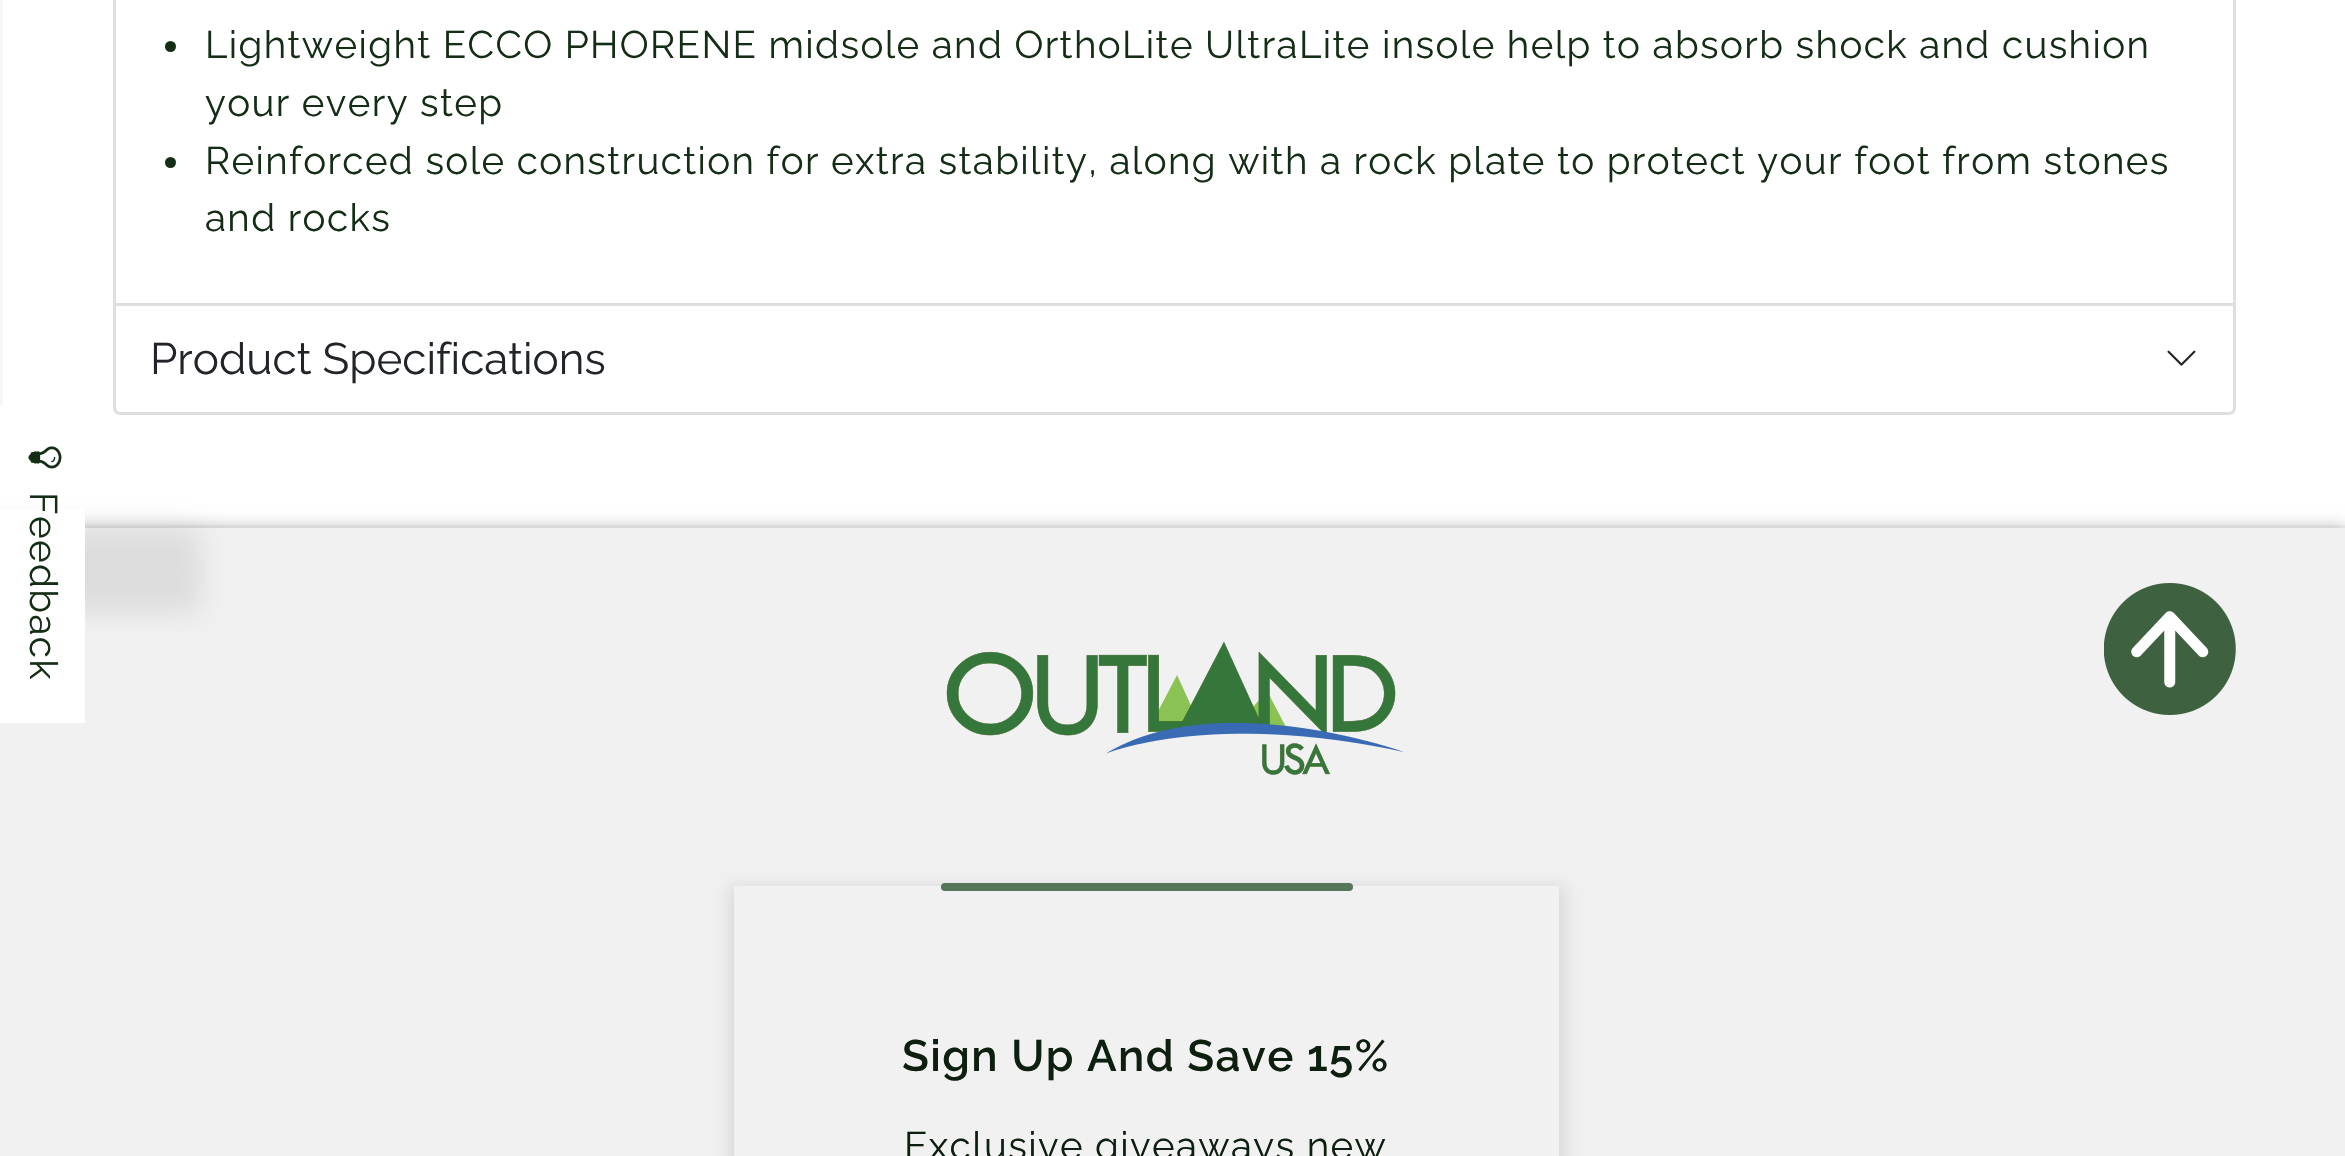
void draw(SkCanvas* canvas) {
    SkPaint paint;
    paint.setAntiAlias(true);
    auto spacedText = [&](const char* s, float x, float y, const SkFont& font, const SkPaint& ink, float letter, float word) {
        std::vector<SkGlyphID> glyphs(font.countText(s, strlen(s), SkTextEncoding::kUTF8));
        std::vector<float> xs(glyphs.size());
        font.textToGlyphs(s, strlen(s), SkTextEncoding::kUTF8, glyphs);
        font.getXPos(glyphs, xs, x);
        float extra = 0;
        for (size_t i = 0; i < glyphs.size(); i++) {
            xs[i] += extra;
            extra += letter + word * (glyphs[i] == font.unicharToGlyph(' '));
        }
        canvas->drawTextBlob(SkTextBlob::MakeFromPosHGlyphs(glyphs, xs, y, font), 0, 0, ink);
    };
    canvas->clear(0xFFFFFFFF);
    paint.setColor(0xFFF6F6F6);
    canvas->drawRect(SkRect::MakeXYWH(85, 525, 2260, 3), paint);
    canvas->drawRect(SkRect::MakeXYWH(0, 0, 3, 405), paint);
    paint.setColor(0xFFDFDFDF);
    canvas->drawRect(SkRect::MakeXYWH(2233, 0, 3, 303), paint);
    canvas->drawRect(SkRect::MakeXYWH(113, 0, 3, 303), paint);
    paint.setColor(0xFF142E16);
    canvas->drawCircle(170.5f, 46.5f, 5.5f, paint);
    SkFont font1(fontMgr->matchFamilyStyle("Raleway", SkFontStyle::Normal()), 38.5f);
    font1.setSubpixel(true);
    spacedText("Lightweight ECCO PHORENE midsole and OrthoLite UltraLite insole help to absorb shock and cushion", 205, 58, font1, paint, 1.38f, 0);
    spacedText("your every step", 205, 116, font1, paint, 1.38f, 0);
    canvas->drawCircle(170.5f, 162.5f, 5.5f, paint);
    spacedText("Reinforced sole construction for extra stability, along with a rock plate to protect your foot from stones", 205, 174, font1, paint, 1.38f, 0);
    spacedText("and rocks", 205, 231, font1, paint, 1.38f, 0);
    paint.setStyle(SkPaint::kStroke_Style);
    paint.setStrokeWidth(3);
    paint.setColor(0xFFDFDFDF);
    canvas->drawPath(SkPathBuilder().moveTo(114.5f, 304.5f).lineTo(2234.5f, 304.5f).lineTo(2234.5f, 408).cubicTo(2234.5f, 411, 2232, 413.5f, 2229, 413.5f).lineTo(120, 413.5f).cubicTo(117, 413.5f, 114.5f, 411, 114.5f, 408).close().detach(), paint);
    SkFont font2(fontMgr->matchFamilyStyle("Raleway", SkFontStyle::Normal()), 44);
    font2.setSubpixel(true);
    paint.setStyle(SkPaint::kFill_Style);
    paint.setColor(0xFF212529);
    canvas->drawString("Product Specifications", 150, 374, font2, paint);
    canvas->drawImageRect(SkImages::DeferredFromEncodedData(SkData::MakeFromFileName("img1.png")), SkRect::MakeXYWH(2167, 350, 29, 16), SkSamplingOptions());
    paint.setColor(0x33000000);
    paint.setMaskFilter(SkMaskFilter::MakeBlur(kNormal_SkBlurStyle, 7));
    canvas->drawRect(SkRect::MakeXYWH(0, 525, 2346, 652), paint);
    paint.setMaskFilter(nullptr);
    paint.setColor(0xFFF1F1F1);
    canvas->drawRect(SkRect::MakeXYWH(0, 528, 2345, 628), paint);
    paint.setColor(0x3B999999);
    paint.setMaskFilter(SkMaskFilter::MakeBlur(kNormal_SkBlurStyle, 14));
    canvas->drawRect(SkRect::MakeXYWH(-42, 528, 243, 85), paint);
    paint.setMaskFilter(nullptr);
    paint.setColor(0xFFFFFFFF);
    canvas->drawRect(SkRect::MakeXYWH(0, 509, 85, 214), paint);
    canvas->drawImageRect(SkImages::DeferredFromEncodedData(SkData::MakeFromFileName("img2.png")), SkRect::MakeXYWH(28, 446, 34, 23), SkSamplingOptions());
    paint.setColor(0xFF142E16);
    canvas->save();
    canvas->rotate(90, 30, 492);
    spacedText("Feedback", 30, 492, font1, paint, 1.38f, 0);
    canvas->restore();
    canvas->drawImageRect(SkImages::DeferredFromEncodedData(SkData::MakeFromFileName("img3.png")), SkRect::MakeXYWH(2104, 583, 132, 132), SkSamplingOptions());
    canvas->drawImageRect(SkImages::DeferredFromEncodedData(SkData::MakeFromFileName("img4.png")), SkRect::MakeXYWH(946, 641, 457, 134), SkSamplingOptions());
    canvas->save();
    canvas->clipPath(SkPathBuilder(SkPathFillType::kEvenOdd).moveTo(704, 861).lineTo(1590, 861).lineTo(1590, 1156).lineTo(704, 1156).close().moveTo(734, 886).lineTo(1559, 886).lineTo(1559, 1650).lineTo(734, 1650).close().detach(), true);
    paint.setColor(0x1A000000);
    paint.setMaskFilter(SkMaskFilter::MakeBlur(kNormal_SkBlurStyle, 8));
    canvas->drawRect(SkRect::MakeXYWH(729, 886, 836, 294), paint);
    paint.setMaskFilter(nullptr);
    canvas->restore();
    paint.setColor(0xFF557658);
    canvas->drawRoundRect(SkRect::MakeXYWH(941, 883, 412, 8), 4, 4, paint);
    SkFont font3(fontMgr->matchFamilyStyle("Raleway", SkFontStyle(600, SkFontStyle::kNormal_Width, SkFontStyle::kUpright_Slant)), 44);
    font3.setSubpixel(true);
    paint.setColor(0xFF0D1F0F);
    spacedText("Sign Up And Save 15%", 902, 1071, font3, paint, 1.38f, 0);
    spacedText("Exclusive giveaways new", 904, 1159, font1, paint, 1.38f, 0);
}
